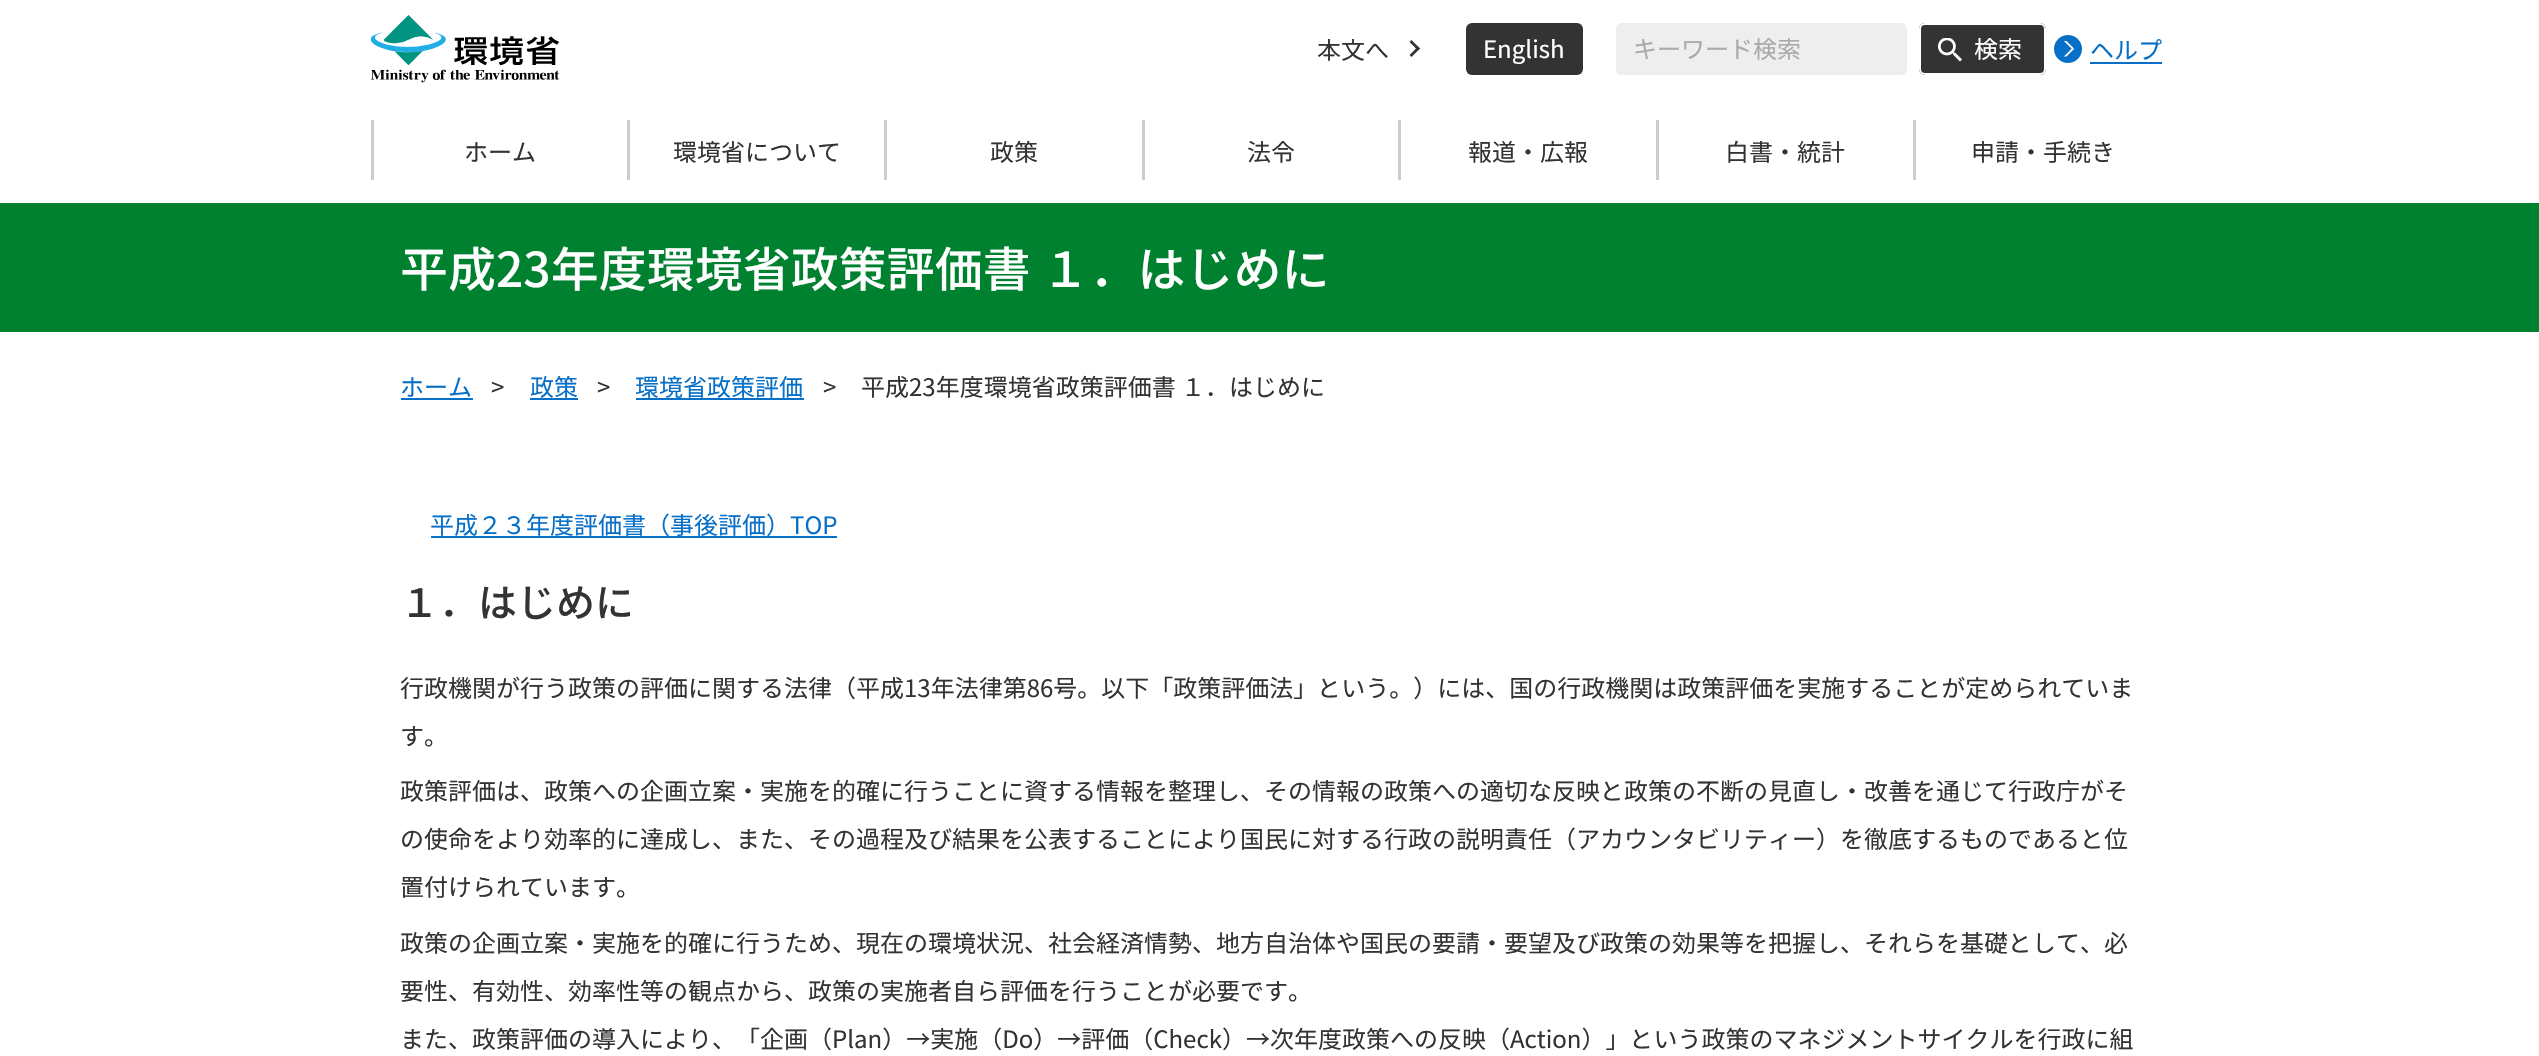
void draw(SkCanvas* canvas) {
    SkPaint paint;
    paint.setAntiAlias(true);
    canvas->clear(0xFFFFFFFF);
    canvas->drawImageRect(SkImages::DeferredFromEncodedData(SkData::MakeFromFileName("img1.png")), SkRect::MakeXYWH(371, 15, 189, 68), SkSamplingOptions());
    SkFont font1(fontMgr->matchFamilyStyle("Noto Sans CJK JP", SkFontStyle::Normal()), 24);
    font1.setSubpixel(true);
    paint.setColor(0xFF333333);
    canvas->drawString("本文へ", 1317, 59, font1, paint);
    canvas->drawPath(SkPathBuilder().moveTo(1411.5f, 40).lineTo(1420, 48.5f).lineTo(1418, 50.5f).lineTo(1409.5f, 42).close().detach(), paint);
    canvas->drawPath(SkPathBuilder().moveTo(1418, 46.5f).lineTo(1420, 48.5f).lineTo(1411.5f, 57).lineTo(1409.5f, 55).close().detach(), paint);
    canvas->drawRoundRect(SkRect::MakeXYWH(1466, 23, 117, 52), 6, 6, paint);
    paint.setColor(0xFFFFFFFF);
    canvas->drawString("English", 1483, 58, font1, paint);
    paint.setColor(0xFFEEEEEE);
    canvas->drawRoundRect(SkRect::MakeXYWH(1616, 23, 291, 52), 6, 6, paint);
    paint.setColor(0xFFAAAAAA);
    canvas->drawString("キーワード検索", 1633, 58, font1, paint);
    paint.setColor(0xFF333333);
    canvas->drawRoundRect(SkRect::MakeXYWH(1919, 23, 127, 52), 6, 6, paint);
    canvas->drawImageRect(SkImages::DeferredFromEncodedData(SkData::MakeFromFileName("img2.png")), SkRect::MakeXYWH(1938, 38, 24, 24), SkSamplingOptions());
    paint.setStyle(SkPaint::kStroke_Style);
    paint.setStrokeWidth(2);
    paint.setColor(0xFFFFFFFF);
    canvas->drawRoundRect(SkRect::MakeXYWH(1920, 24, 125, 50), 5, 5, paint);
    paint.setStyle(SkPaint::kFill_Style);
    canvas->drawString("検索", 1974, 58, font1, paint);
    canvas->drawImageRect(SkImages::DeferredFromEncodedData(SkData::MakeFromFileName("img3.png")), SkRect::MakeXYWH(2054, 35, 28, 28), SkSamplingOptions());
    paint.setColor(0xFF066FC7);
    canvas->drawString("ヘルプ", 2090, 59, font1, paint);
    canvas->drawRect(SkRect::MakeXYWH(2090, 62, 72, 2), paint);
    paint.setColor(0xFFCCCCCC);
    canvas->drawRect(SkRect::MakeXYWH(371, 120, 3, 60), paint);
    paint.setColor(0xFF333333);
    canvas->drawString("ホーム", 464, 161, font1, paint);
    paint.setColor(0xFFCCCCCC);
    canvas->drawRect(SkRect::MakeXYWH(627, 120, 3, 60), paint);
    paint.setColor(0xFF333333);
    canvas->drawString("環境省について", 673, 161, font1, paint);
    paint.setColor(0xFFCCCCCC);
    canvas->drawRect(SkRect::MakeXYWH(884, 120, 3, 60), paint);
    paint.setColor(0xFF333333);
    canvas->drawString("政策", 990, 161, font1, paint);
    paint.setColor(0xFFCCCCCC);
    canvas->drawRect(SkRect::MakeXYWH(1142, 120, 3, 60), paint);
    paint.setColor(0xFF333333);
    canvas->drawString("法令", 1247, 161, font1, paint);
    paint.setColor(0xFFCCCCCC);
    canvas->drawRect(SkRect::MakeXYWH(1398, 120, 3, 60), paint);
    paint.setColor(0xFF333333);
    canvas->drawString("報道・広報", 1468, 161, font1, paint);
    paint.setColor(0xFFCCCCCC);
    canvas->drawRect(SkRect::MakeXYWH(1656, 120, 3, 60), paint);
    paint.setColor(0xFF333333);
    canvas->drawString("白書・統計", 1725, 161, font1, paint);
    paint.setColor(0xFFCCCCCC);
    canvas->drawRect(SkRect::MakeXYWH(1913, 120, 3, 60), paint);
    paint.setColor(0xFF333333);
    canvas->drawString("申請・手続き", 1971, 161, font1, paint);
    paint.setColor(0xFF008130);
    canvas->drawRect(SkRect::MakeXYWH(0, 203, 2539, 129), paint);
    SkFont font2(fontMgr->matchFamilyStyle("Noto Sans CJK JP", SkFontStyle(500, SkFontStyle::kNormal_Width, SkFontStyle::kUpright_Slant)), 48);
    font2.setSubpixel(true);
    paint.setColor(0xFFFFFFFF);
    canvas->drawString("平成23年度環境省政策評価書 １．はじめに", 400, 287, font2, paint);
    paint.setColor(0xFF066FC7);
    canvas->drawString("ホーム", 400, 396, font1, paint);
    canvas->drawRect(SkRect::MakeXYWH(401, 398, 72, 2), paint);
    paint.setColor(0xFF333333);
    canvas->drawString(">", 491, 396, font1, paint);
    paint.setColor(0xFF066FC7);
    canvas->drawString("政策", 530, 396, font1, paint);
    canvas->drawRect(SkRect::MakeXYWH(530, 398, 48, 2), paint);
    paint.setColor(0xFF333333);
    canvas->drawString(">", 597, 396, font1, paint);
    paint.setColor(0xFF066FC7);
    canvas->drawString("環境省政策評価", 635, 396, font1, paint);
    canvas->drawRect(SkRect::MakeXYWH(636, 398, 168, 2), paint);
    paint.setColor(0xFF333333);
    canvas->drawString(">", 823, 396, font1, paint);
    canvas->drawString("平成23年度環境省政策評価書 １．はじめに", 861, 396, font1, paint);
    paint.setColor(0xFF066FC7);
    canvas->drawRect(SkRect::MakeXYWH(431, 536, 406, 2), paint);
    canvas->drawString("平成２３年度評価書（事後評価）TOP", 430, 534, font1, paint);
    SkFont font3(fontMgr->matchFamilyStyle("Noto Sans CJK JP", SkFontStyle(500, SkFontStyle::kNormal_Width, SkFontStyle::kUpright_Slant)), 39);
    font3.setSubpixel(true);
    paint.setColor(0xFF333333);
    canvas->drawString("１．はじめに", 400, 617, font3, paint);
    canvas->drawString("行政機関が行う政策の評価に関する法律（平成13年法律第86号。以下「政策評価法」という。）には、国の行政機関は政策評価を実施することが定められていま", 400, 697, font1, paint);
    canvas->drawString("す。", 400, 745, font1, paint);
    canvas->drawString("政策評価は、政策への企画立案・実施を的確に行うことに資する情報を整理し、その情報の政策への適切な反映と政策の不断の見直し・改善を通じて行政庁がそ", 400, 800, font1, paint);
    canvas->drawString("の使命をより効率的に達成し、また、その過程及び結果を公表することにより国民に対する行政の説明責任（アカウンタビリティー）を徹底するものであると位", 400, 848, font1, paint);
    canvas->drawString("置付けられています。", 400, 896, font1, paint);
    canvas->drawString("政策の企画立案・実施を的確に行うため、現在の環境状況、社会経済情勢、地方自治体や国民の要請・要望及び政策の効果等を把握し、それらを基礎として、必", 400, 952, font1, paint);
    canvas->drawString("要性、有効性、効率性等の観点から、政策の実施者自ら評価を行うことが必要です。", 400, 1000, font1, paint);
    canvas->drawString("また、政策評価の導入により、「企画（Plan）→実施（Do）→評価（Check）→次年度政策への反映（Action）」という政策のマネジメントサイクルを行政に組", 400, 1048, font1, paint);
}
